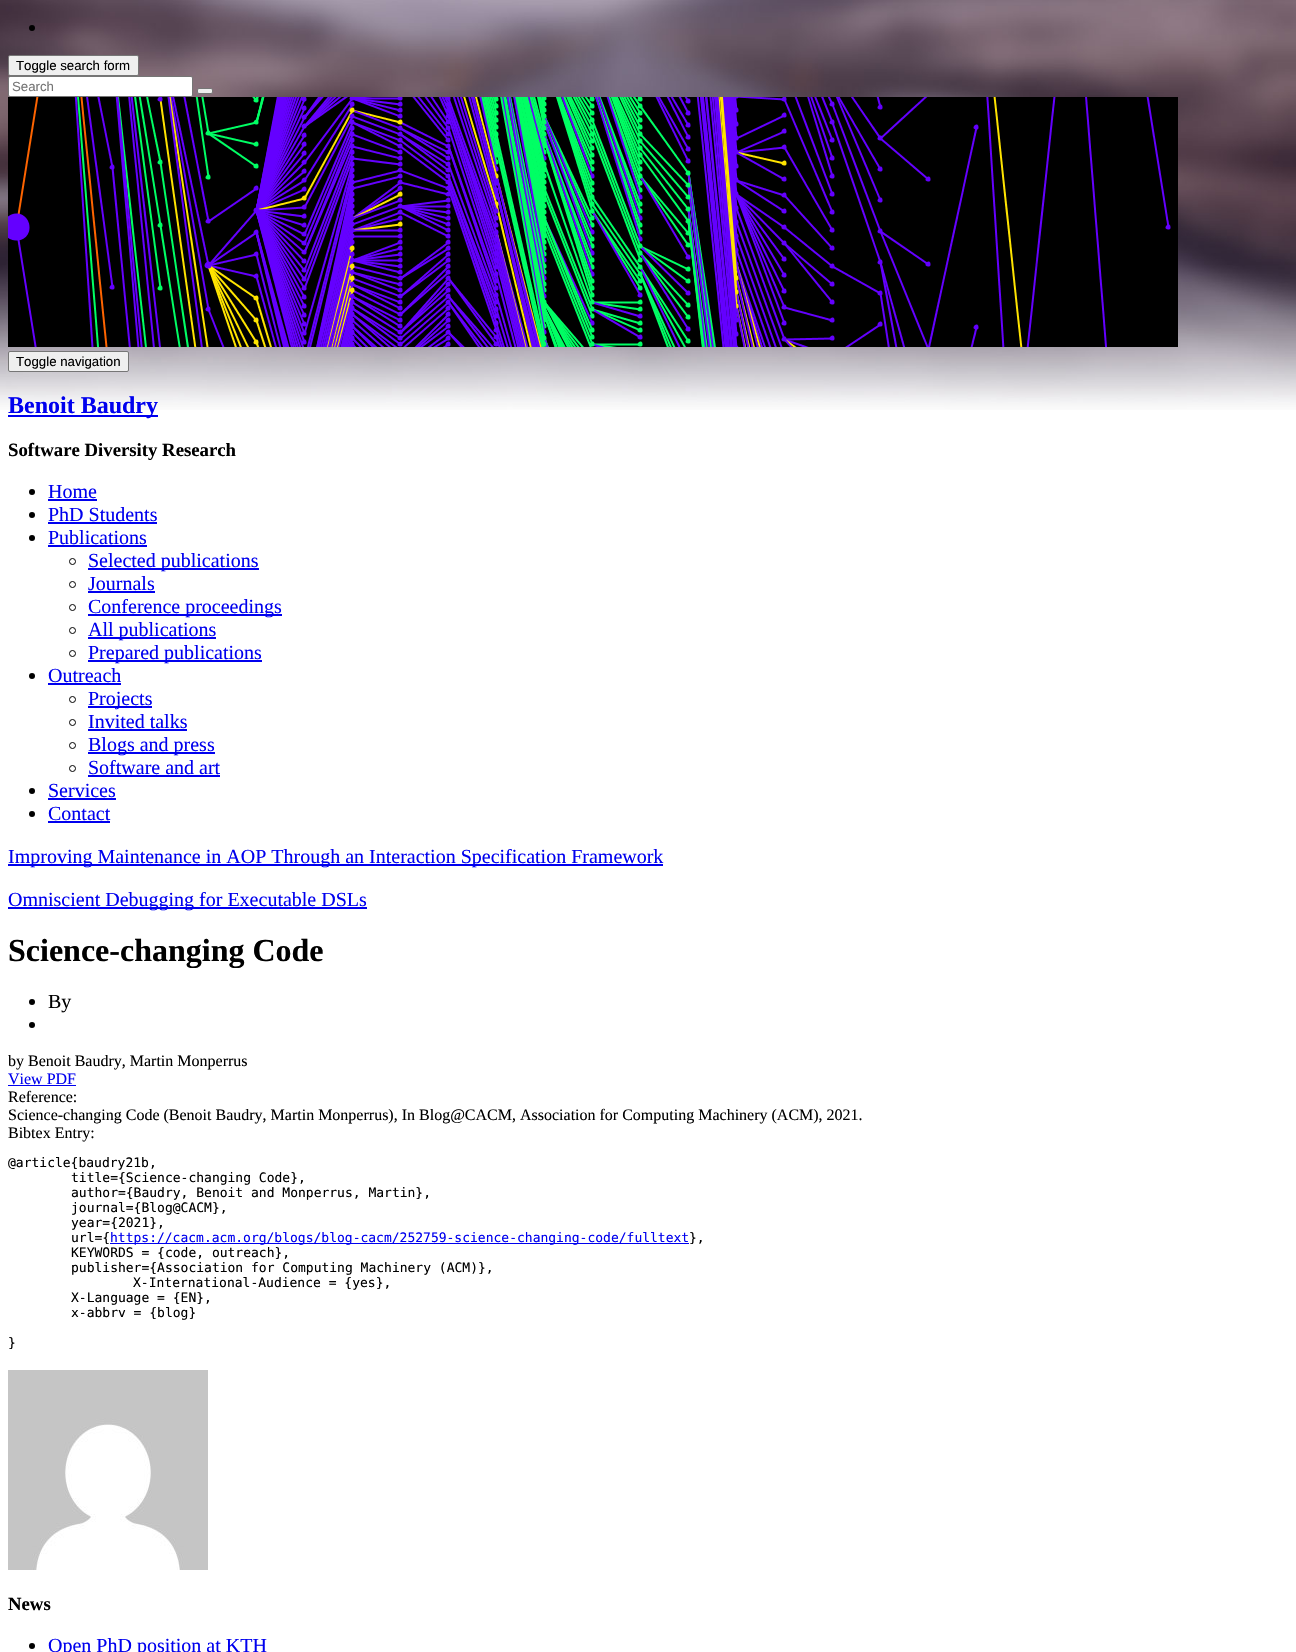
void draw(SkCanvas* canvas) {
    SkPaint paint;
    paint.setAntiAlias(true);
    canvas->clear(0xFFFFFFFF);
    canvas->drawImageRect(SkImages::DeferredFromEncodedData(SkData::MakeFromFileName("img1.png")), SkRect::MakeXYWH(0, 0, 1296, 410), SkSamplingOptions());
    paint.setColor(0xFF000000);
    canvas->drawCircle(32, 28, 3, paint);
    paint.setColor(0xFFEFEFEF);
    canvas->drawRoundRect(SkRect::MakeXYWH(8.5f, 55.5f, 130, 20), 1.5f, 1.5f, paint);
    paint.setStyle(SkPaint::kStroke_Style);
    paint.setStrokeWidth(1);
    paint.setColor(0xFF767676);
    canvas->drawRoundRect(SkRect::MakeXYWH(8.5f, 55.5f, 130, 20), 1.5f, 1.5f, paint);
    SkFont font1(fontMgr->matchFamilyStyle("Liberation Sans", SkFontStyle::Normal()), 13.25f);
    font1.setSubpixel(true);
    paint.setStyle(SkPaint::kFill_Style);
    paint.setColor(0xFF000000);
    canvas->drawString("Toggle search form", 16, 70, font1, paint);
    paint.setColor(0xFFFFFFFF);
    canvas->drawRoundRect(SkRect::MakeXYWH(8.5f, 76.5f, 184, 20), 1.5f, 1.5f, paint);
    paint.setStyle(SkPaint::kStroke_Style);
    paint.setColor(0xFF767676);
    canvas->drawRoundRect(SkRect::MakeXYWH(8.5f, 76.5f, 184, 20), 1.5f, 1.5f, paint);
    paint.setStyle(SkPaint::kFill_Style);
    paint.setColor(0xFF757575);
    canvas->drawString("Search", 12, 91, font1, paint);
    paint.setColor(0xFFEFEFEF);
    canvas->drawRoundRect(SkRect::MakeXYWH(197.5f, 88.5f, 15, 5), 1.5f, 1.5f, paint);
    paint.setStyle(SkPaint::kStroke_Style);
    paint.setColor(0xFF767676);
    canvas->drawRoundRect(SkRect::MakeXYWH(197.5f, 88.5f, 15, 5), 1.5f, 1.5f, paint);
    canvas->drawImageRect(SkImages::DeferredFromEncodedData(SkData::MakeFromFileName("img2.png")), SkRect::MakeXYWH(8, 97, 1170, 250), SkSamplingOptions());
    paint.setStyle(SkPaint::kFill_Style);
    paint.setColor(0xFFEFEFEF);
    canvas->drawRoundRect(SkRect::MakeXYWH(8.5f, 351.5f, 120, 20), 1.5f, 1.5f, paint);
    paint.setStyle(SkPaint::kStroke_Style);
    paint.setColor(0xFF767676);
    canvas->drawRoundRect(SkRect::MakeXYWH(8.5f, 351.5f, 120, 20), 1.5f, 1.5f, paint);
    paint.setStyle(SkPaint::kFill_Style);
    paint.setColor(0xFF000000);
    canvas->drawString("Toggle navigation", 16, 366, font1, paint);
    paint.setColor(0xFF0000EE);
    canvas->drawRect(SkRect::MakeXYWH(8, 415, 150, 2), paint);
    SkFont font2(fontMgr->matchFamilyStyle("Liberation Serif", SkFontStyle::Bold()), 24);
    font2.setSubpixel(true);
    canvas->drawString("Benoit Baudry", 8, 413, font2, paint);
    SkFont font3(fontMgr->matchFamilyStyle("Liberation Serif", SkFontStyle::Bold()), 18.75f);
    font3.setSubpixel(true);
    paint.setColor(0xFF000000);
    canvas->drawString("Software Diversity Research", 8, 456, font3, paint);
    canvas->drawCircle(32, 492, 3, paint);
    SkFont font4(fontMgr->matchFamilyStyle("Liberation Serif", SkFontStyle::Normal()), 20);
    font4.setSubpixel(true);
    paint.setColor(0xFF0000EE);
    canvas->drawString("Home", 48, 498, font4, paint);
    canvas->drawRect(SkRect::MakeXYWH(48, 499, 49, 2), paint);
    paint.setColor(0xFF000000);
    canvas->drawCircle(32, 515, 3, paint);
    paint.setColor(0xFF0000EE);
    canvas->drawString("PhD Students", 48, 521, font4, paint);
    canvas->drawRect(SkRect::MakeXYWH(48, 522, 109, 2), paint);
    paint.setColor(0xFF000000);
    canvas->drawCircle(32, 538, 3, paint);
    paint.setColor(0xFF0000EE);
    canvas->drawString("Publications", 48, 544, font4, paint);
    canvas->drawRect(SkRect::MakeXYWH(48, 545, 99, 2), paint);
    paint.setStyle(SkPaint::kStroke_Style);
    paint.setColor(0xFF000000);
    canvas->drawCircle(72.5f, 561.5f, 3, paint);
    paint.setStyle(SkPaint::kFill_Style);
    paint.setColor(0xFF0000EE);
    canvas->drawRect(SkRect::MakeXYWH(88, 568, 171, 2), paint);
    canvas->drawString("Selected publications", 88, 567, font4, paint);
    paint.setStyle(SkPaint::kStroke_Style);
    paint.setColor(0xFF000000);
    canvas->drawCircle(72.5f, 584.5f, 3, paint);
    paint.setStyle(SkPaint::kFill_Style);
    paint.setColor(0xFF0000EE);
    canvas->drawString("Journals", 88, 590, font4, paint);
    canvas->drawRect(SkRect::MakeXYWH(88, 591, 67, 2), paint);
    paint.setStyle(SkPaint::kStroke_Style);
    paint.setColor(0xFF000000);
    canvas->drawCircle(72.5f, 607.5f, 3, paint);
    paint.setStyle(SkPaint::kFill_Style);
    paint.setColor(0xFF0000EE);
    canvas->drawRect(SkRect::MakeXYWH(88, 614, 194, 2), paint);
    canvas->drawString("Conference proceedings", 88, 613, font4, paint);
    paint.setStyle(SkPaint::kStroke_Style);
    paint.setColor(0xFF000000);
    canvas->drawCircle(72.5f, 630.5f, 3, paint);
    paint.setStyle(SkPaint::kFill_Style);
    paint.setColor(0xFF0000EE);
    canvas->drawRect(SkRect::MakeXYWH(88, 637, 128, 2), paint);
    canvas->drawString("All publications", 88, 636, font4, paint);
    paint.setStyle(SkPaint::kStroke_Style);
    paint.setColor(0xFF000000);
    canvas->drawCircle(72.5f, 653.5f, 3, paint);
    paint.setStyle(SkPaint::kFill_Style);
    paint.setColor(0xFF0000EE);
    canvas->drawRect(SkRect::MakeXYWH(88, 660, 174, 2), paint);
    canvas->drawString("Prepared publications", 88, 659, font4, paint);
    paint.setColor(0xFF000000);
    canvas->drawCircle(32, 676, 3, paint);
    paint.setColor(0xFF0000EE);
    canvas->drawString("Outreach", 48, 682, font4, paint);
    canvas->drawRect(SkRect::MakeXYWH(48, 683, 73, 2), paint);
    paint.setStyle(SkPaint::kStroke_Style);
    paint.setColor(0xFF000000);
    canvas->drawCircle(72.5f, 699.5f, 3, paint);
    paint.setStyle(SkPaint::kFill_Style);
    paint.setColor(0xFF0000EE);
    canvas->drawRect(SkRect::MakeXYWH(88, 706, 64, 2), paint);
    canvas->drawString("Projects", 88, 705, font4, paint);
    paint.setStyle(SkPaint::kStroke_Style);
    paint.setColor(0xFF000000);
    canvas->drawCircle(72.5f, 722.5f, 3, paint);
    paint.setStyle(SkPaint::kFill_Style);
    paint.setColor(0xFF0000EE);
    canvas->drawString("Invited talks", 88, 728, font4, paint);
    canvas->drawRect(SkRect::MakeXYWH(88, 729, 99, 2), paint);
    paint.setStyle(SkPaint::kStroke_Style);
    paint.setColor(0xFF000000);
    canvas->drawCircle(72.5f, 745.5f, 3, paint);
    paint.setStyle(SkPaint::kFill_Style);
    paint.setColor(0xFF0000EE);
    canvas->drawRect(SkRect::MakeXYWH(88, 752, 127, 2), paint);
    canvas->drawString("Blogs and press", 88, 751, font4, paint);
    paint.setStyle(SkPaint::kStroke_Style);
    paint.setColor(0xFF000000);
    canvas->drawCircle(72.5f, 768.5f, 3, paint);
    paint.setStyle(SkPaint::kFill_Style);
    paint.setColor(0xFF0000EE);
    canvas->drawString("Software and art", 88, 774, font4, paint);
    canvas->drawRect(SkRect::MakeXYWH(88, 775, 132, 2), paint);
    paint.setColor(0xFF000000);
    canvas->drawCircle(32, 791, 3, paint);
    paint.setColor(0xFF0000EE);
    canvas->drawString("Services", 48, 797, font4, paint);
    canvas->drawRect(SkRect::MakeXYWH(48, 798, 68, 2), paint);
    paint.setColor(0xFF000000);
    canvas->drawCircle(32, 814, 3, paint);
    paint.setColor(0xFF0000EE);
    canvas->drawString("Contact", 48, 820, font4, paint);
    canvas->drawRect(SkRect::MakeXYWH(48, 821, 62, 2), paint);
    canvas->drawRect(SkRect::MakeXYWH(8, 864, 655, 2), paint);
    canvas->drawString("Improving Maintenance in AOP Through an Interaction Specification Framework", 8, 863, font4, paint);
    canvas->drawRect(SkRect::MakeXYWH(8, 907, 359, 2), paint);
    canvas->drawString("Omniscient Debugging for Executable DSLs", 8, 906, font4, paint);
    SkFont font5(fontMgr->matchFamilyStyle("Liberation Serif", SkFontStyle::Bold()), 32);
    font5.setSubpixel(true);
    paint.setColor(0xFF000000);
    canvas->drawString("Science-changing Code", 8, 961, font5, paint);
    canvas->drawCircle(32, 1002, 3, paint);
    canvas->drawString("By", 48, 1008, font4, paint);
    canvas->drawCircle(32, 1025, 3, paint);
    SkFont font6(fontMgr->matchFamilyStyle("Liberation Serif", SkFontStyle::Normal()), 16);
    font6.setSubpixel(true);
    canvas->drawString("by Benoit Baudry, Martin Monperrus", 8, 1066, font6, paint);
    paint.setColor(0xFF0000EE);
    canvas->drawString("View PDF", 8, 1084, font6, paint);
    canvas->drawRect(SkRect::MakeXYWH(8, 1085, 68, 1), paint);
    paint.setColor(0xFF000000);
    canvas->drawString("Reference:", 8, 1102, font6, paint);
    canvas->drawString("Science-changing Code (Benoit Baudry, Martin Monperrus), In Blog@CACM, Association for Computing Machinery (ACM), 2021.", 8, 1120, font6, paint);
    canvas->drawString("Bibtex Entry:", 8, 1138, font6, paint);
    SkFont font7(fontMgr->matchFamilyStyle("DejaVu Sans Mono", SkFontStyle::Normal()), 13);
    font7.setSubpixel(true);
    canvas->drawString("@article{baudry21b,", 8, 1167, font7, paint);
    canvas->drawString("title={Science-changing Code},", 71, 1182, font7, paint);
    canvas->drawString("author={Baudry, Benoit and Monperrus, Martin},", 71, 1197, font7, paint);
    canvas->drawString("journal={Blog@CACM},", 71, 1212, font7, paint);
    canvas->drawString("year={2021},", 71, 1227, font7, paint);
    canvas->drawString("url={", 71, 1242, font7, paint);
    paint.setColor(0xFF0000EE);
    canvas->drawRect(SkRect::MakeXYWH(110, 1243, 579, 1), paint);
    canvas->drawString("https://cacm.acm.org/blogs/blog-cacm/252759-science-changing-code/fulltext", 110, 1242, font7, paint);
    paint.setColor(0xFF000000);
    canvas->drawString("},", 689, 1242, font7, paint);
    canvas->drawString("KEYWORDS = {code, outreach},", 71, 1257, font7, paint);
    canvas->drawString("publisher={Association for Computing Machinery (ACM)},", 71, 1272, font7, paint);
    canvas->drawString("X-International-Audience = {yes},", 133, 1287, font7, paint);
    canvas->drawString("X-Language = {EN},", 71, 1302, font7, paint);
    canvas->drawString("x-abbrv = {blog}", 71, 1317, font7, paint);
    canvas->drawString("}", 8, 1347, font7, paint);
    canvas->drawImageRect(SkImages::DeferredFromEncodedData(SkData::MakeFromFileName("img3.png")), SkRect::MakeXYWH(8, 1370, 200, 200), SkSamplingOptions());
    canvas->drawString("News", 8, 1610, font3, paint);
    canvas->drawCircle(32, 1646, 3, paint);
    paint.setColor(0xFF0000EE);
    canvas->drawString("Open PhD position at KTH", 48, 1652, font4, paint);
}
